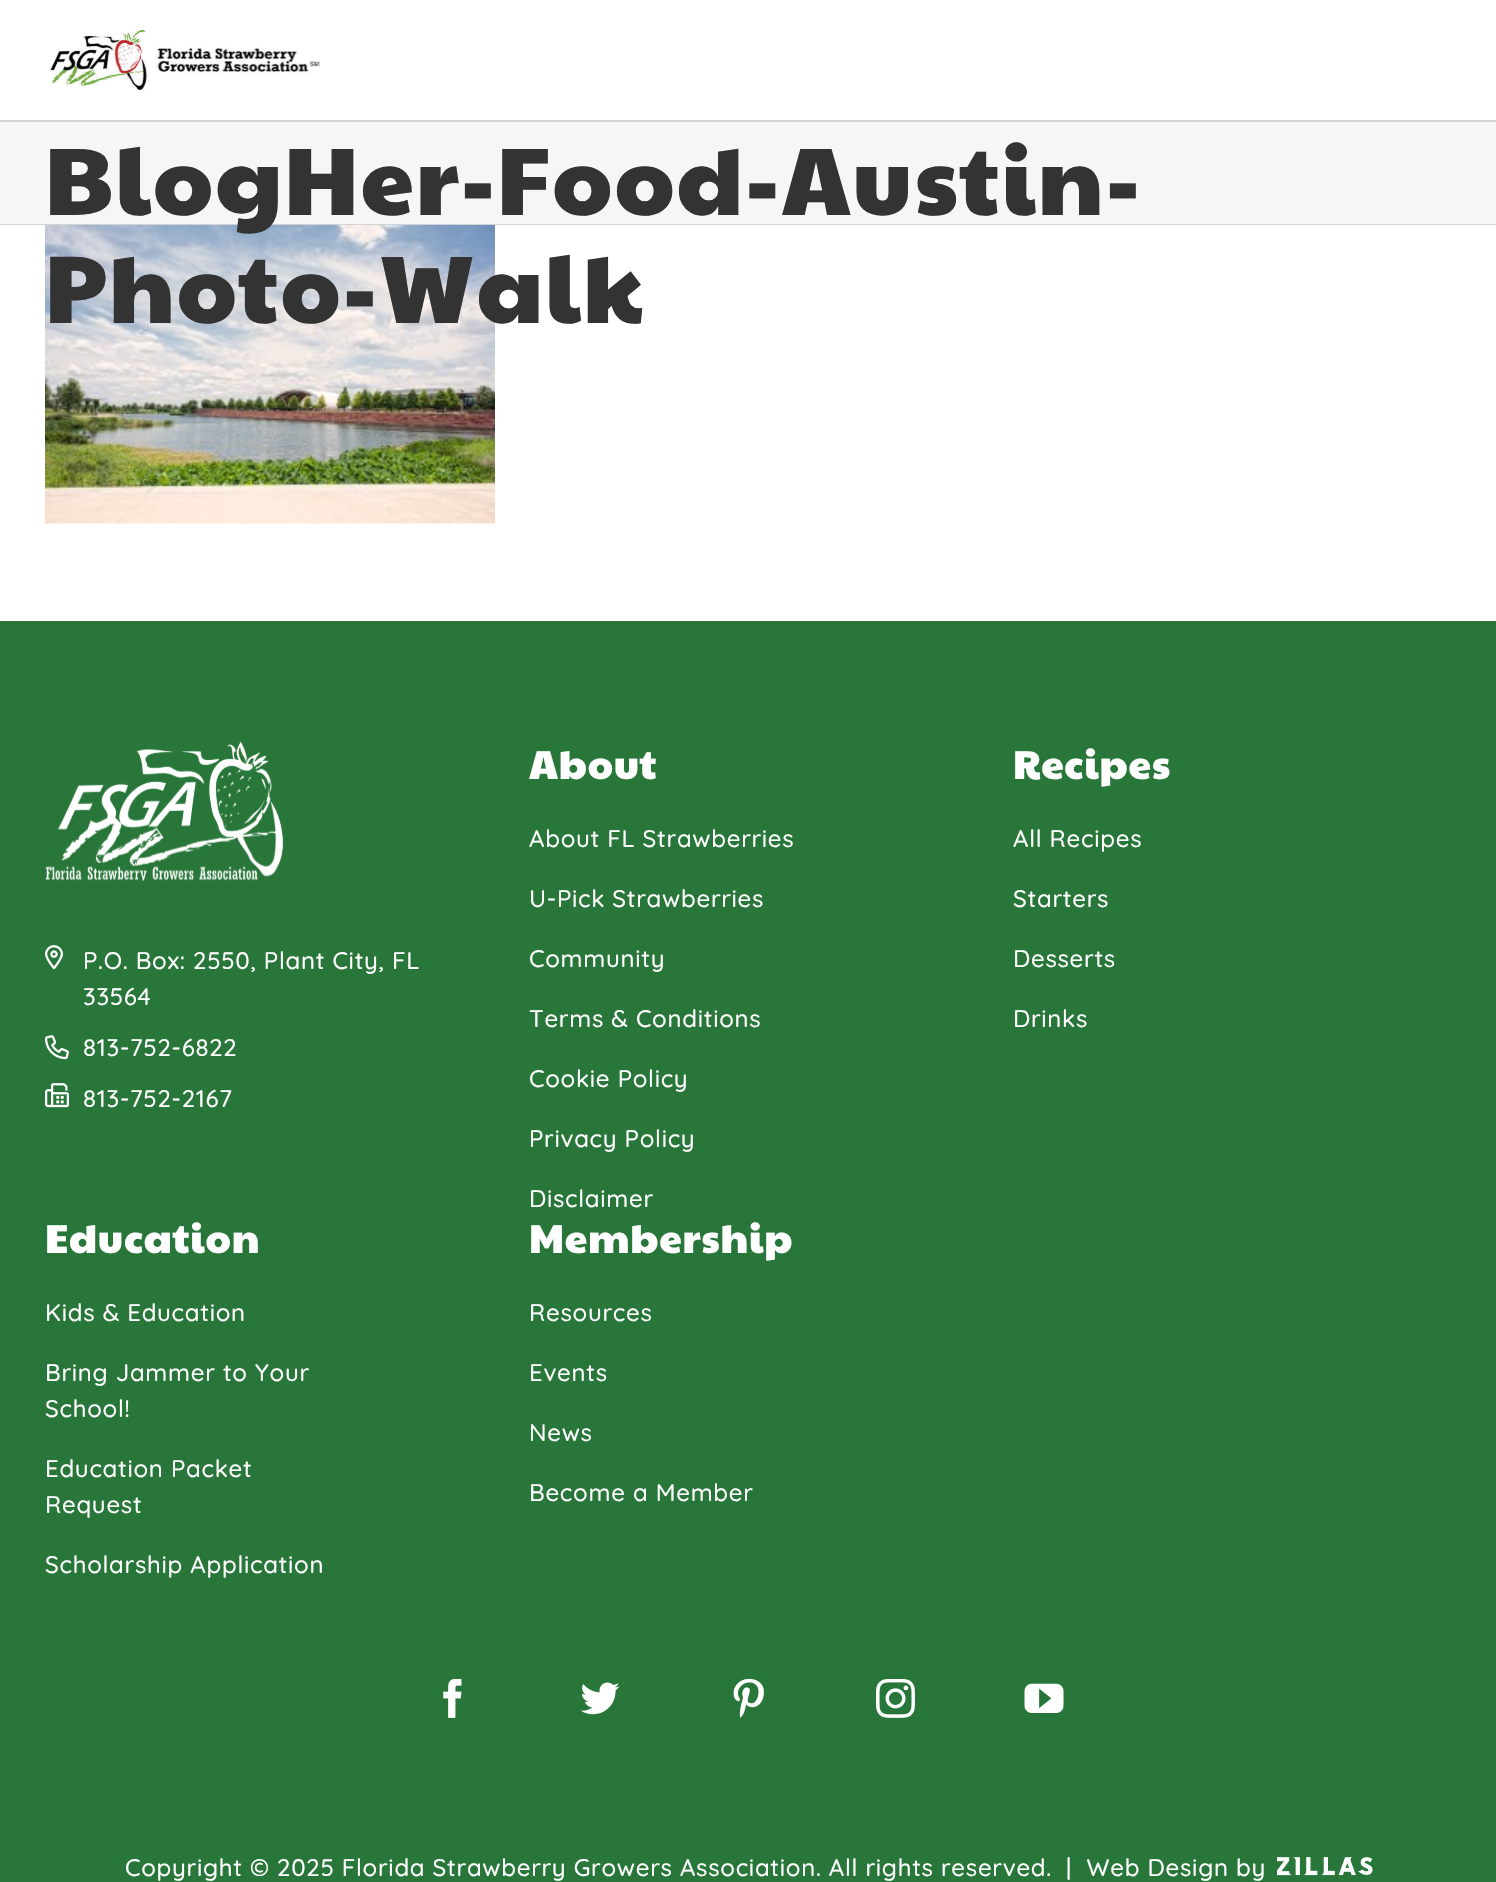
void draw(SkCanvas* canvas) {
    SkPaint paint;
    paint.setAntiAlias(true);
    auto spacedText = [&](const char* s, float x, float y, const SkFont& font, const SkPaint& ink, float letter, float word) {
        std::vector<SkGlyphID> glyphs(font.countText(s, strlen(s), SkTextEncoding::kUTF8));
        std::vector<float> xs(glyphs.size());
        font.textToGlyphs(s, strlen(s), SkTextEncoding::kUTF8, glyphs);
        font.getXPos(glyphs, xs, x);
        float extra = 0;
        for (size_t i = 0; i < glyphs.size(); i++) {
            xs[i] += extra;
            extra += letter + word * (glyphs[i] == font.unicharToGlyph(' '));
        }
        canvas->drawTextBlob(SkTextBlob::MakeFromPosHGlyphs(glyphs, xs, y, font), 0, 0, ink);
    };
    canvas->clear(0xFFFFFFFF);
    canvas->drawImageRect(SkImages::DeferredFromEncodedData(SkData::MakeFromFileName("img1.png")), SkRect::MakeXYWH(49, 30, 271, 60), SkSamplingOptions());
    paint.setColor(0xFFF6F6F6);
    canvas->drawRect(SkRect::MakeXYWH(0, 122, 1496, 102), paint);
    paint.setColor(0xFFD2D3D4);
    canvas->drawRect(SkRect::MakeXYWH(0, 120, 1496, 2), paint);
    canvas->drawRect(SkRect::MakeXYWH(0, 224, 1496, 1), paint);
    canvas->drawImageRect(SkImages::DeferredFromEncodedData(SkData::MakeFromFileName("img2.png")), SkRect::MakeXYWH(45, 225, 450, 299), SkSamplingOptions());
    SkFont font1(fontMgr->matchFamilyStyle("Paytone One", SkFontStyle::Normal()), 96);
    font1.setSubpixel(true);
    paint.setColor(0xFF333333);
    spacedText("BlogHer-Food-Austin-", 45, 215, font1, paint, 1.9f, 0);
    spacedText("Photo-Walk", 45, 323, font1, paint, 1.9f, 0);
    paint.setColor(0xFF287639);
    canvas->drawRect(SkRect::MakeXYWH(0, 621, 1496, 1261), paint);
    canvas->drawImageRect(SkImages::DeferredFromEncodedData(SkData::MakeFromFileName("img3.png")), SkRect::MakeXYWH(45, 741, 239, 140), SkSamplingOptions());
    canvas->drawImageRect(SkImages::DeferredFromEncodedData(SkData::MakeFromFileName("img4.png")), SkRect::MakeXYWH(45, 945, 18, 25), SkSamplingOptions());
    SkFont font2(fontMgr->matchFamilyStyle("Quicksand", SkFontStyle(300, SkFontStyle::kNormal_Width, SkFontStyle::kUpright_Slant)), 24);
    font2.setSubpixel(true);
    paint.setColor(0xFFFFFFFF);
    spacedText("P.O. Box: 2550, Plant City, FL", 83, 969, font2, paint, 0.72f, 0);
    spacedText("33564", 83, 1005, font2, paint, 0.72f, 0);
    canvas->drawImageRect(SkImages::DeferredFromEncodedData(SkData::MakeFromFileName("img5.png")), SkRect::MakeXYWH(45, 1035, 24, 25), SkSamplingOptions());
    spacedText("813-752-6822", 83, 1056, font2, paint, 0.72f, 0);
    canvas->drawImageRect(SkImages::DeferredFromEncodedData(SkData::MakeFromFileName("img6.png")), SkRect::MakeXYWH(45, 1083, 24, 25), SkSamplingOptions());
    spacedText("813-752-2167", 83, 1107, font2, paint, 0.72f, 0);
    SkFont font3(fontMgr->matchFamilyStyle("Paytone One", SkFontStyle::Normal()), 40.5f);
    font3.setSubpixel(true);
    spacedText("About", 529, 779, font3, paint, 0.75f, 0);
    spacedText("About FL Strawberries", 529, 847, font2, paint, 0.72f, 0);
    spacedText("U-Pick Strawberries", 529, 907, font2, paint, 0.72f, 0);
    spacedText("Community", 529, 967, font2, paint, 0.72f, 0);
    spacedText("Terms & Conditions", 529, 1027, font2, paint, 0.72f, 0);
    spacedText("Cookie Policy", 529, 1087, font2, paint, 0.72f, 0);
    spacedText("Privacy Policy", 529, 1147, font2, paint, 0.72f, 0);
    spacedText("Disclaimer", 529, 1207, font2, paint, 0.72f, 0);
    spacedText("Recipes", 1013, 779, font3, paint, 0.75f, 0);
    spacedText("All Recipes", 1013, 847, font2, paint, 0.72f, 0);
    spacedText("Starters", 1013, 907, font2, paint, 0.72f, 0);
    spacedText("Desserts", 1013, 967, font2, paint, 0.72f, 0);
    spacedText("Drinks", 1013, 1027, font2, paint, 0.72f, 0);
    spacedText("Education", 45, 1253, font3, paint, 0.75f, 0);
    spacedText("Kids & Education", 45, 1321, font2, paint, 0.72f, 0);
    spacedText("Bring Jammer to Your", 45, 1381, font2, paint, 0.72f, 0);
    spacedText("School!", 45, 1417, font2, paint, 0.72f, 0);
    spacedText("Education Packet", 45, 1477, font2, paint, 0.72f, 0);
    spacedText("Request", 45, 1513, font2, paint, 0.72f, 0);
    spacedText("Scholarship Application", 45, 1573, font2, paint, 0.72f, 0);
    spacedText("Membership", 529, 1253, font3, paint, 0.75f, 0);
    spacedText("Resources", 529, 1321, font2, paint, 0.72f, 0);
    spacedText("Events", 529, 1381, font2, paint, 0.72f, 0);
    spacedText("News", 529, 1441, font2, paint, 0.72f, 0);
    spacedText("Become a Member", 529, 1501, font2, paint, 0.72f, 0);
    canvas->drawImageRect(SkImages::DeferredFromEncodedData(SkData::MakeFromFileName("img7.png")), SkRect::MakeXYWH(443, 1679, 19, 39), SkSamplingOptions());
    canvas->drawImageRect(SkImages::DeferredFromEncodedData(SkData::MakeFromFileName("img8.png")), SkRect::MakeXYWH(580, 1682, 40, 33), SkSamplingOptions());
    canvas->drawImageRect(SkImages::DeferredFromEncodedData(SkData::MakeFromFileName("img9.png")), SkRect::MakeXYWH(733, 1679, 31, 39), SkSamplingOptions());
    canvas->drawImageRect(SkImages::DeferredFromEncodedData(SkData::MakeFromFileName("img10.png")), SkRect::MakeXYWH(876, 1679, 39, 39), SkSamplingOptions());
    canvas->drawImageRect(SkImages::DeferredFromEncodedData(SkData::MakeFromFileName("img11.png")), SkRect::MakeXYWH(1024, 1683, 40, 30), SkSamplingOptions());
    spacedText("Copyright © 2025 Florida Strawberry Growers Association. All rights reserved.", 125, 1876, font2, paint, 0.72f, 0);
    spacedText("|  Web Design by", 1066, 1876, font2, paint, 0.72f, 0);
    canvas->drawImageRect(SkImages::DeferredFromEncodedData(SkData::MakeFromFileName("img12.png")), SkRect::MakeXYWH(1277, 1857, 96, 19), SkSamplingOptions());
}
